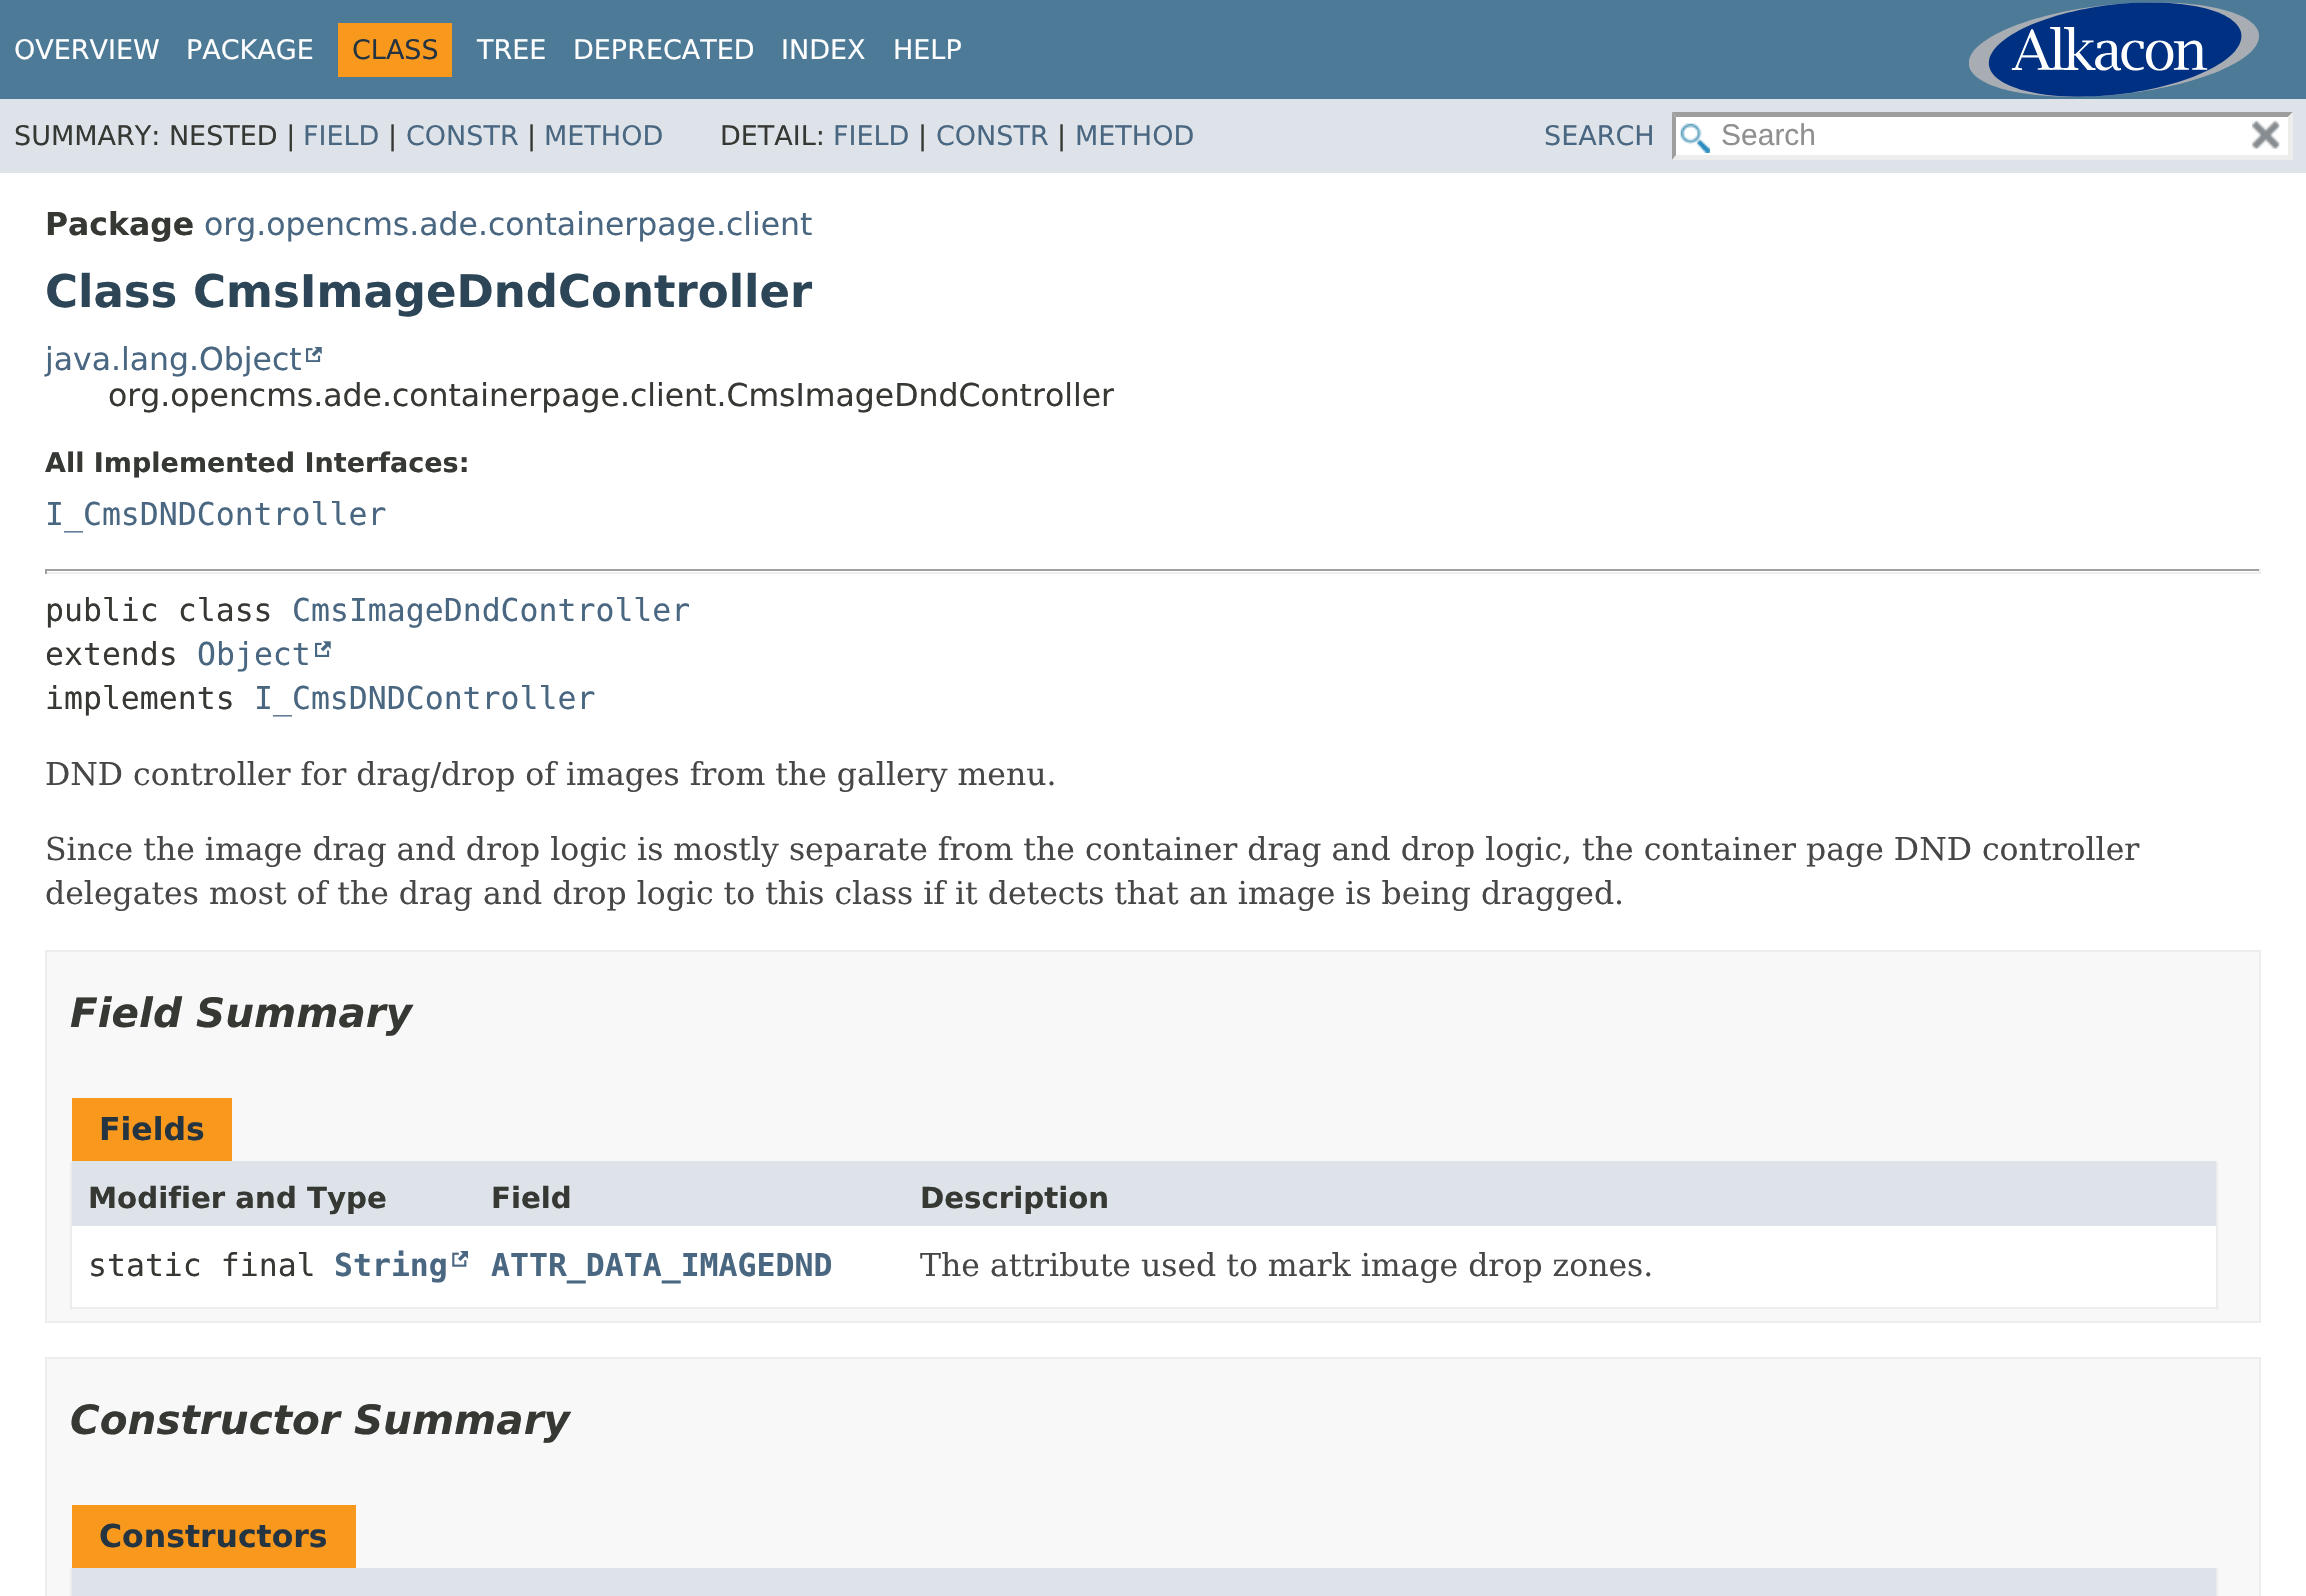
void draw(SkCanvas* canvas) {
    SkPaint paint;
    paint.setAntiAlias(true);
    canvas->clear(0xFFFFFFFF);
    paint.setColor(0xFF4D7A97);
    canvas->drawRect(SkRect::MakeXYWH(0, 0, 2306, 99), paint);
    SkFont font1(fontMgr->matchFamilyStyle("DejaVu Sans", SkFontStyle::Normal()), 27);
    font1.setSubpixel(true);
    paint.setColor(0xFFFFFFFF);
    canvas->drawString("OVERVIEW", 14, 59, font1, paint);
    canvas->drawString("PACKAGE", 186, 59, font1, paint);
    paint.setColor(0xFFF8981D);
    canvas->drawRect(SkRect::MakeXYWH(338, 23, 114, 54), paint);
    paint.setColor(0xFF253441);
    canvas->drawString("CLASS", 352, 59, font1, paint);
    paint.setColor(0xFFFFFFFF);
    canvas->drawString("TREE", 477, 59, font1, paint);
    canvas->drawString("DEPRECATED", 573, 59, font1, paint);
    canvas->drawString("INDEX", 781, 59, font1, paint);
    canvas->drawString("HELP", 893, 59, font1, paint);
    canvas->drawImageRect(SkImages::DeferredFromEncodedData(SkData::MakeFromFileName("img1.png")), SkRect::MakeXYWH(1969, 2, 290, 95), SkSamplingOptions());
    paint.setColor(0xFFDEE3E9);
    canvas->drawRect(SkRect::MakeXYWH(0, 99, 2306, 74), paint);
    paint.setColor(0xFF353833);
    canvas->drawString("SUMMARY: NESTED |", 14, 145, font1, paint);
    paint.setColor(0xFF4A6782);
    canvas->drawString("FIELD", 303, 145, font1, paint);
    paint.setColor(0xFF353833);
    canvas->drawString("|", 388, 145, font1, paint);
    paint.setColor(0xFF4A6782);
    canvas->drawString("CONSTR", 406, 145, font1, paint);
    paint.setColor(0xFF353833);
    canvas->drawString("|", 527, 145, font1, paint);
    paint.setColor(0xFF4A6782);
    canvas->drawString("METHOD", 544, 145, font1, paint);
    paint.setColor(0xFF353833);
    canvas->drawString("DETAIL:", 720, 145, font1, paint);
    paint.setColor(0xFF4A6782);
    canvas->drawString("FIELD", 833, 145, font1, paint);
    paint.setColor(0xFF353833);
    canvas->drawString("|", 918, 145, font1, paint);
    paint.setColor(0xFF4A6782);
    canvas->drawString("CONSTR", 936, 145, font1, paint);
    paint.setColor(0xFF353833);
    canvas->drawString("|", 1057, 145, font1, paint);
    paint.setColor(0xFF4A6782);
    canvas->drawString("METHOD", 1075, 145, font1, paint);
    canvas->drawString("SEARCH", 1544, 145, font1, paint);
    paint.setColor(0xFFFFFFFF);
    canvas->drawRect(SkRect::MakeXYWH(1672, 113, 621, 47), paint);
    canvas->drawImageRect(SkImages::DeferredFromEncodedData(SkData::MakeFromFileName("img2.png")), SkRect::MakeXYWH(1680, 123, 30, 30), SkSamplingOptions());
    paint.setColor(0xFF9E9E9E);
    canvas->drawPath(SkPathBuilder().moveTo(1672, 112).lineTo(2293, 112).lineTo(2288, 117).lineTo(1676, 117).close().detach(), paint);
    paint.setColor(0xFFEDEDED);
    canvas->drawPath(SkPathBuilder().moveTo(2293, 112).lineTo(2293, 160).lineTo(2288, 155).lineTo(2288, 117).close().detach(), paint);
    canvas->drawPath(SkPathBuilder().moveTo(2293, 160).lineTo(1672, 160).lineTo(1676, 155).lineTo(2288, 155).close().detach(), paint);
    paint.setColor(0xFF9E9E9E);
    canvas->drawPath(SkPathBuilder().moveTo(1672, 160).lineTo(1672, 112).lineTo(1676, 117).lineTo(1676, 155).close().detach(), paint);
    SkFont font2(fontMgr->matchFamilyStyle("Liberation Sans", SkFontStyle::Normal()), 30);
    font2.setSubpixel(true);
    paint.setColor(0xFF909090);
    canvas->drawString("Search", 1721, 145, font2, paint);
    canvas->drawImageRect(SkImages::DeferredFromEncodedData(SkData::MakeFromFileName("img3.png")), SkRect::MakeXYWH(2252, 120, 28, 29), SkSamplingOptions());
    SkFont font3(fontMgr->matchFamilyStyle("DejaVu Sans", SkFontStyle::Bold()), 31.5f);
    font3.setSubpixel(true);
    paint.setColor(0xFF353833);
    canvas->drawString("Package", 45, 235, font3, paint);
    SkFont font4(fontMgr->matchFamilyStyle("DejaVu Sans", SkFontStyle::Normal()), 31.5f);
    font4.setSubpixel(true);
    paint.setColor(0xFF4A6782);
    canvas->drawString("org.opencms.ade.containerpage.client", 204, 235, font4, paint);
    SkFont font5(fontMgr->matchFamilyStyle("DejaVu Sans", SkFontStyle::Bold()), 45);
    font5.setSubpixel(true);
    paint.setColor(0xFF2C4557);
    canvas->drawString("Class CmsImageDndController", 45, 307, font5, paint);
    paint.setColor(0xFF4A6782);
    canvas->drawString("java.lang.Object", 45, 370, font4, paint);
    canvas->drawImageRect(SkImages::DeferredFromEncodedData(SkData::MakeFromFileName("img4.png")), SkRect::MakeXYWH(306, 347, 16, 15), SkSamplingOptions());
    paint.setColor(0xFF353833);
    canvas->drawString("org.opencms.ade.containerpage.client.CmsImageDndController", 108, 406, font4, paint);
    SkFont font6(fontMgr->matchFamilyStyle("DejaVu Sans", SkFontStyle::Bold()), 27);
    font6.setSubpixel(true);
    canvas->drawString("All Implemented Interfaces:", 45, 472, font6, paint);
    SkFont font7(fontMgr->matchFamilyStyle("DejaVu Sans Mono", SkFontStyle::Normal()), 31.5f);
    font7.setSubpixel(true);
    paint.setColor(0xFF4A6782);
    canvas->drawString("I_CmsDNDController", 45, 525, font7, paint);
    paint.setColor(0xFF9F9F9F);
    canvas->drawRect(SkRect::MakeXYWH(45, 569, 2216, 2), paint);
    paint.setColor(0xFFEEEEEE);
    canvas->drawRect(SkRect::MakeXYWH(2259, 569, 2, 5), paint);
    canvas->drawRect(SkRect::MakeXYWH(45, 572, 2216, 2), paint);
    paint.setColor(0xFF9F9F9F);
    canvas->drawRect(SkRect::MakeXYWH(45, 569, 2, 5), paint);
    paint.setColor(0xFF353833);
    canvas->drawString("public class", 45, 621, font7, paint);
    paint.setColor(0xFF4A6782);
    canvas->drawString("CmsImageDndController", 292, 621, font7, paint);
    paint.setColor(0xFF353833);
    canvas->drawString("extends", 45, 665, font7, paint);
    paint.setColor(0xFF4A6782);
    canvas->drawString("Object", 197, 665, font7, paint);
    canvas->drawImageRect(SkImages::DeferredFromEncodedData(SkData::MakeFromFileName("img5.png")), SkRect::MakeXYWH(315, 641, 16, 16), SkSamplingOptions());
    paint.setColor(0xFF353833);
    canvas->drawString("implements", 45, 709, font7, paint);
    paint.setColor(0xFF4A6782);
    canvas->drawString("I_CmsDNDController", 254, 709, font7, paint);
    SkFont font8(fontMgr->matchFamilyStyle("DejaVu Serif", SkFontStyle::Normal()), 31.5f);
    font8.setSubpixel(true);
    paint.setColor(0xFF474747);
    canvas->drawString("DND controller for drag/drop of images from the gallery menu.", 45, 785, font8, paint);
    canvas->drawString("Since the image drag and drop logic is mostly separate from the container drag and drop logic, the container page DND controller", 45, 860, font8, paint);
    canvas->drawString("delegates most of the drag and drop logic to this class if it detects that an image is being dragged.", 45, 904, font8, paint);
    paint.setColor(0xFFF8F8F8);
    canvas->drawRect(SkRect::MakeXYWH(46, 951, 2214, 371), paint);
    paint.setStyle(SkPaint::kStroke_Style);
    paint.setStrokeWidth(2);
    paint.setColor(0xFFEDEDED);
    canvas->drawRect(SkRect::MakeXYWH(46, 951, 2214, 371), paint);
    SkFont font9(fontMgr->matchFamilyStyle("DejaVu Sans", SkFontStyle::BoldItalic()), 40.5f);
    font9.setSubpixel(true);
    paint.setStyle(SkPaint::kFill_Style);
    paint.setColor(0xFF353833);
    canvas->drawString("Field Summary", 70, 1027, font9, paint);
    paint.setColor(0xFFF8981D);
    canvas->drawRect(SkRect::MakeXYWH(72, 1098, 160, 63), paint);
    paint.setColor(0xFF253441);
    canvas->drawString("Fields", 99, 1140, font3, paint);
    paint.setColor(0xFFEDEDED);
    canvas->drawRect(SkRect::MakeXYWH(2216, 1161, 2, 149), paint);
    canvas->drawRect(SkRect::MakeXYWH(70, 1307, 2149, 2), paint);
    canvas->drawRect(SkRect::MakeXYWH(70, 1161, 2, 149), paint);
    paint.setColor(0xFFDEE3E9);
    canvas->drawRect(SkRect::MakeXYWH(72, 1161, 2144, 65), paint);
    SkFont font10(fontMgr->matchFamilyStyle("DejaVu Sans", SkFontStyle::Bold()), 29.25f);
    font10.setSubpixel(true);
    paint.setColor(0xFF353833);
    canvas->drawString("Modifier and Type", 88, 1208, font10, paint);
    canvas->drawString("Field", 491, 1208, font10, paint);
    canvas->drawString("Description", 920, 1208, font10, paint);
    paint.setColor(0xFFFFFFFF);
    canvas->drawRect(SkRect::MakeXYWH(72, 1226, 2144, 81), paint);
    paint.setColor(0xFF353833);
    canvas->drawString("static final", 88, 1276, font7, paint);
    SkFont font11(fontMgr->matchFamilyStyle("DejaVu Sans Mono", SkFontStyle::Bold()), 31.5f);
    font11.setSubpixel(true);
    paint.setColor(0xFF4A6782);
    canvas->drawString("String", 334, 1276, font11, paint);
    canvas->drawImageRect(SkImages::DeferredFromEncodedData(SkData::MakeFromFileName("img6.png")), SkRect::MakeXYWH(452, 1251, 16, 16), SkSamplingOptions());
    canvas->drawString("ATTR_DATA_IMAGEDND", 491, 1276, font11, paint);
    paint.setColor(0xFF474747);
    canvas->drawString("The attribute used to mark image drop zones.", 920, 1276, font8, paint);
    paint.setColor(0xFFF8F8F8);
    canvas->drawRect(SkRect::MakeXYWH(46, 1358, 2214, 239), paint);
    paint.setStyle(SkPaint::kStroke_Style);
    paint.setColor(0xFFEDEDED);
    canvas->drawRect(SkRect::MakeXYWH(46, 1358, 2214, 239), paint);
    paint.setStyle(SkPaint::kFill_Style);
    paint.setColor(0xFF353833);
    canvas->drawString("Constructor Summary", 70, 1434, font9, paint);
    paint.setColor(0xFFF8981D);
    canvas->drawRect(SkRect::MakeXYWH(72, 1505, 284, 63), paint);
    paint.setColor(0xFF253441);
    canvas->drawString("Constructors", 99, 1547, font3, paint);
    paint.setColor(0xFFEDEDED);
    canvas->drawRect(SkRect::MakeXYWH(2216, 1568, 2, 28), paint);
    canvas->drawRect(SkRect::MakeXYWH(70, 1568, 2, 28), paint);
    paint.setColor(0xFFDEE3E9);
    canvas->drawRect(SkRect::MakeXYWH(72, 1568, 2144, 28), paint);
}
